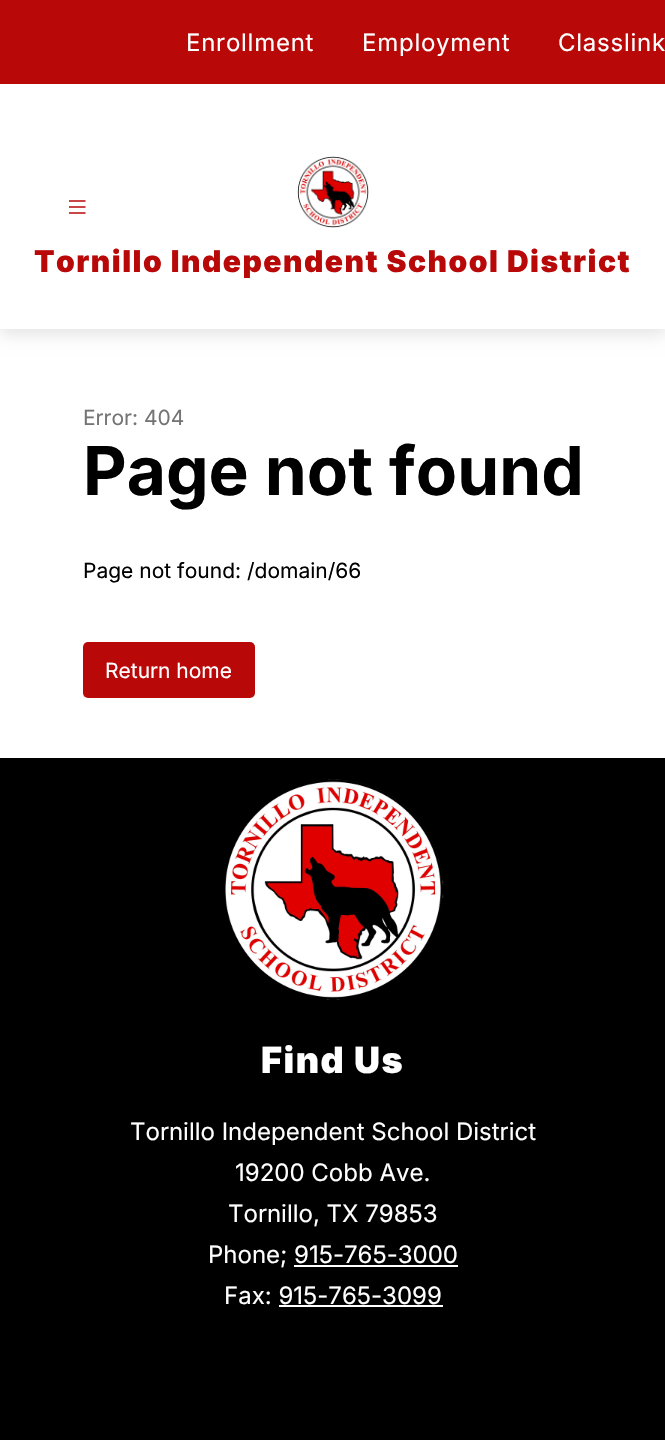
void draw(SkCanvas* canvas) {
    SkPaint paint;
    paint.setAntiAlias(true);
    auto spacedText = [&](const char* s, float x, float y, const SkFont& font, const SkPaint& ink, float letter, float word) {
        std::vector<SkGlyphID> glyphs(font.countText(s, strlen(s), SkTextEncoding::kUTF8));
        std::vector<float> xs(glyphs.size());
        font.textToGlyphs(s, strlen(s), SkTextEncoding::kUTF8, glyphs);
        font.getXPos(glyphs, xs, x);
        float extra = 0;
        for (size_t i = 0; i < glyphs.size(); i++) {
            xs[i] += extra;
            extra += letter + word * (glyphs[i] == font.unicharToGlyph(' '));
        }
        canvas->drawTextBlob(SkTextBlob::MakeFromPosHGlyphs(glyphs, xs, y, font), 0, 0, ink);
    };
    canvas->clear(0xFFFFFFFF);
    paint.setColor(0x1A000000);
    paint.setMaskFilter(SkMaskFilter::MakeBlur(kNormal_SkBlurStyle, 7.5f));
    canvas->drawRect(SkRect::MakeXYWH(0, 6, 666, 329), paint);
    paint.setMaskFilter(nullptr);
    paint.setColor(0xFFFFFFFF);
    canvas->drawRect(SkRect::MakeXYWH(0, 84, 665, 245), paint);
    paint.setColor(0xFFB80808);
    canvas->drawRect(SkRect::MakeXYWH(0, 0, 665, 84), paint);
    SkFont font1(fontMgr->matchFamilyStyle("Inter", SkFontStyle::Normal()), 24);
    font1.setSubpixel(true);
    paint.setColor(0xFFFFFFFF);
    spacedText("Enrollment", 186, 51, font1, paint, 0.75f, 0);
    spacedText("Employment", 362, 51, font1, paint, 0.75f, 0);
    spacedText("Classlink", 558, 51, font1, paint, 0.75f, 0);
    canvas->drawImageRect(SkImages::DeferredFromEncodedData(SkData::MakeFromFileName("img1.png")), SkRect::MakeXYWH(69, 200, 17, 14), SkSamplingOptions());
    canvas->drawImageRect(SkImages::DeferredFromEncodedData(SkData::MakeFromFileName("img2.png")), SkRect::MakeXYWH(297, 156, 72, 72), SkSamplingOptions());
    SkFont font2(fontMgr->matchFamilyStyle("Inter", SkFontStyle(900, SkFontStyle::kNormal_Width, SkFontStyle::kUpright_Slant)), 30);
    font2.setSubpixel(true);
    paint.setColor(0xFFB80808);
    spacedText("Tornillo Independent School District", 34, 272, font2, paint, 1.5f, 0);
    SkFont font3(fontMgr->matchFamilyStyle("Inter", SkFontStyle::Normal()), 21);
    font3.setSubpixel(true);
    paint.setColor(0xFF747474);
    canvas->drawString("Error: 404", 83, 425, font3, paint);
    SkFont font4(fontMgr->matchFamilyStyle("Inter", SkFontStyle::Bold()), 67.5f);
    font4.setSubpixel(true);
    paint.setColor(0xFF000000);
    canvas->drawString("Page not found", 83, 495, font4, paint);
    canvas->drawString("Page not found: /domain/66", 83, 578, font3, paint);
    paint.setColor(0xFFB80808);
    canvas->drawRoundRect(SkRect::MakeXYWH(83, 642, 172, 56), 5, 5, paint);
    paint.setColor(0xFFFFFFFF);
    canvas->drawString("Return home", 105, 678, font3, paint);
    paint.setColor(0xFF000000);
    canvas->drawRect(SkRect::MakeXYWH(0, 758, 665, 682), paint);
    canvas->drawImageRect(SkImages::DeferredFromEncodedData(SkData::MakeFromFileName("img3.png")), SkRect::MakeXYWH(225, 779, 219, 221), SkSamplingOptions());
    SkFont font5(fontMgr->matchFamilyStyle("Inter", SkFontStyle(900, SkFontStyle::kNormal_Width, SkFontStyle::kUpright_Slant)), 36);
    font5.setSubpixel(true);
    paint.setColor(0xFFFFFFFF);
    spacedText("Find Us", 261, 1073, font5, paint, 1.5f, 0);
    canvas->drawString("Tornillo Independent School District", 130, 1140, font1, paint);
    canvas->drawString("19200 Cobb Ave.", 235, 1181, font1, paint);
    canvas->drawString("Tornillo, TX 79853", 228, 1222, font1, paint);
    canvas->drawString("Phone; 915-765-3000", 208, 1263, font1, paint);
    canvas->drawRect(SkRect::MakeXYWH(294, 1265, 164, 2), paint);
    canvas->drawString("Fax: 915-765-3099", 224, 1304, font1, paint);
    canvas->drawRect(SkRect::MakeXYWH(279, 1305, 164, 2), paint);
}
